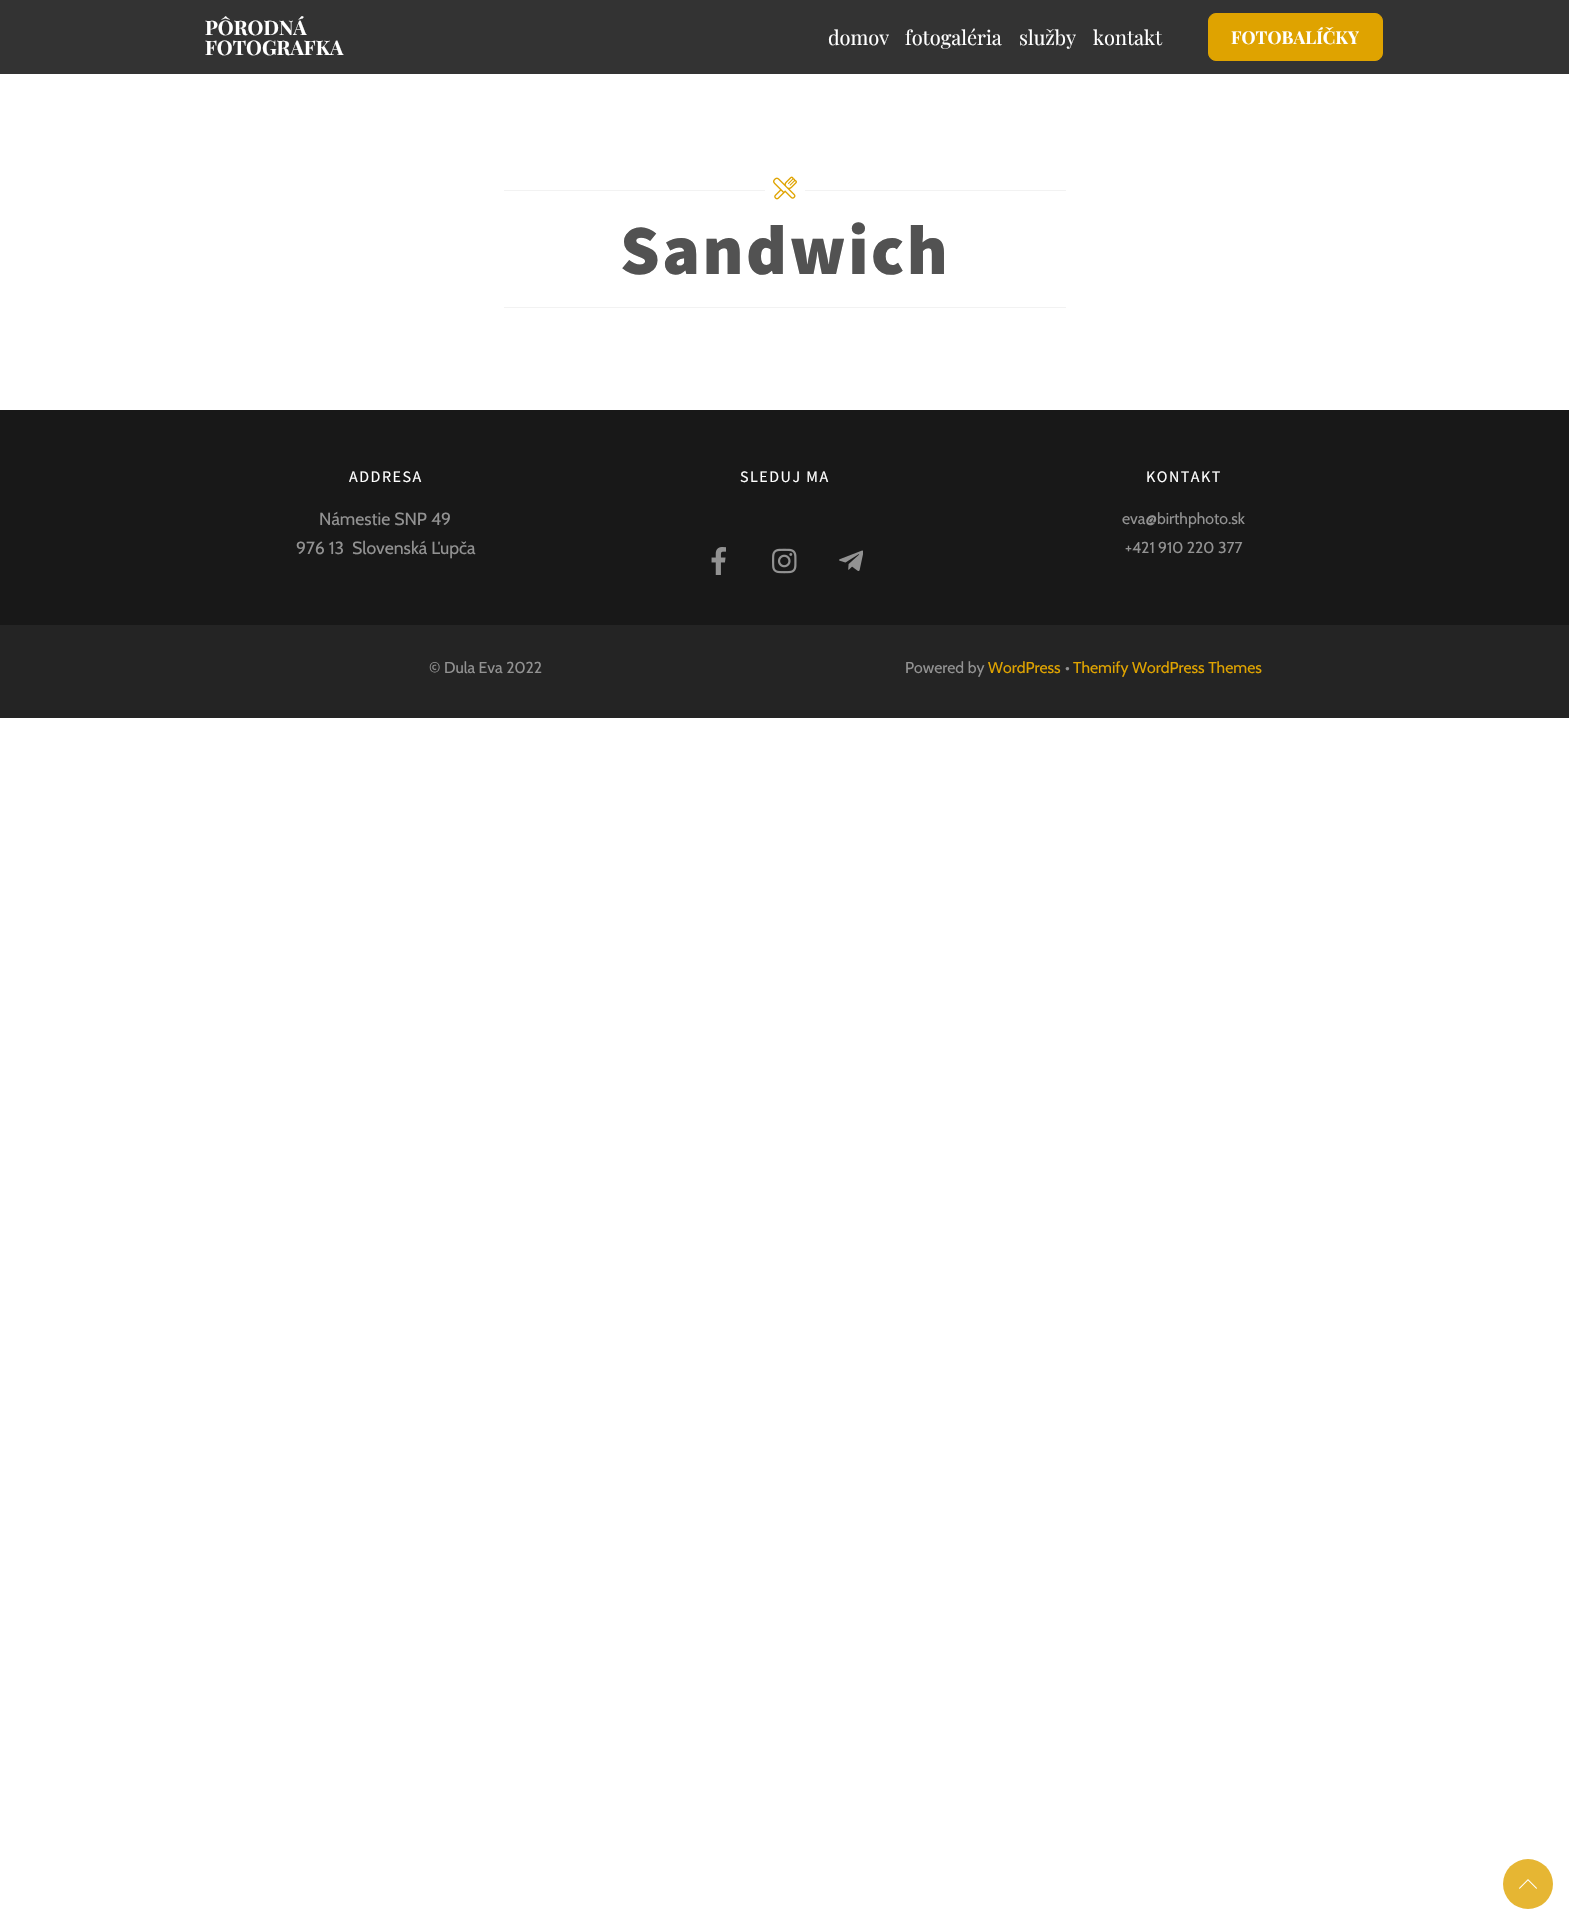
void draw(SkCanvas* canvas) {
    SkPaint paint;
    paint.setAntiAlias(true);
    auto spacedText = [&](const char* s, float x, float y, const SkFont& font, const SkPaint& ink, float letter, float word) {
        std::vector<SkGlyphID> glyphs(font.countText(s, strlen(s), SkTextEncoding::kUTF8));
        std::vector<float> xs(glyphs.size());
        font.textToGlyphs(s, strlen(s), SkTextEncoding::kUTF8, glyphs);
        font.getXPos(glyphs, xs, x);
        float extra = 0;
        for (size_t i = 0; i < glyphs.size(); i++) {
            xs[i] += extra;
            extra += letter + word * (glyphs[i] == font.unicharToGlyph(' '));
        }
        canvas->drawTextBlob(SkTextBlob::MakeFromPosHGlyphs(glyphs, xs, y, font), 0, 0, ink);
    };
    canvas->clear(0xFFFFFFFF);
    paint.setColor(0xFF333333);
    canvas->drawRect(SkRect::MakeXYWH(0, 0, 1569, 74), paint);
    SkFont font1(fontMgr->matchFamilyStyle("Playfair Display", SkFontStyle::Bold()), 20);
    font1.setSubpixel(true);
    paint.setColor(0xFFFFFFFF);
    canvas->drawString("PÔRODNÁ", 205, 35, font1, paint);
    canvas->drawString("FOTOGRAFKA", 205, 55, font1, paint);
    SkFont font2(fontMgr->matchFamilyStyle("Playfair Display", SkFontStyle::Normal()), 20);
    font2.setSubpixel(true);
    canvas->drawString("domov", 828, 45, font2, paint);
    canvas->drawString("fotogaléria", 905, 45, font2, paint);
    canvas->drawString("služby", 1019, 45, font2, paint);
    canvas->drawString("kontakt", 1093, 45, font2, paint);
    paint.setColor(0xFFDFA300);
    canvas->drawRoundRect(SkRect::MakeXYWH(1208.5f, 13.5f, 174, 47), 7.5f, 7.5f, paint);
    paint.setStyle(SkPaint::kStroke_Style);
    paint.setStrokeWidth(1);
    canvas->drawRoundRect(SkRect::MakeXYWH(1208.5f, 13.5f, 174, 47), 7.5f, 7.5f, paint);
    SkFont font3(fontMgr->matchFamilyStyle("Playfair Display", SkFontStyle::Bold()), 17.75f);
    font3.setSubpixel(true);
    paint.setStyle(SkPaint::kFill_Style);
    paint.setColor(0xFFFFFFFF);
    canvas->drawString("FOTOBALÍČKY", 1231, 44, font3, paint);
    paint.setColor(0xFFF2F2F2);
    canvas->drawRect(SkRect::MakeXYWH(504, 190, 261, 1), paint);
    canvas->drawImageRect(SkImages::DeferredFromEncodedData(SkData::MakeFromFileName("img1.png")), SkRect::MakeXYWH(773, 176, 24, 24), SkSamplingOptions());
    canvas->drawRect(SkRect::MakeXYWH(805, 190, 261, 1), paint);
    SkFont font4(fontMgr->matchFamilyStyle("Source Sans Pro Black", SkFontStyle(900, SkFontStyle::kNormal_Width, SkFontStyle::kUpright_Slant)), 70.5f);
    font4.setSubpixel(true);
    paint.setColor(0xFF525252);
    spacedText("Sandwich", 620, 274, font4, paint, 2.5f, 0);
    paint.setColor(0xFFF2F2F2);
    canvas->drawRect(SkRect::MakeXYWH(504, 307, 562, 1), paint);
    paint.setColor(0xFF181818);
    canvas->drawRect(SkRect::MakeXYWH(0, 410, 1569, 215), paint);
    SkFont font5(fontMgr->matchFamilyStyle("Source Sans Pro", SkFontStyle::Normal()), 16);
    font5.setSubpixel(true);
    paint.setColor(0xFFFFFFFF);
    spacedText("ADDRESA", 349, 482, font5, paint, 1.5f, 0);
    SkFont font6(fontMgr->matchFamilyStyle("Cabin", SkFontStyle::Normal()), 17.6f);
    font6.setSubpixel(true);
    paint.setColor(0xFF929292);
    canvas->drawString("Námestie SNP 49", 319, 525, font6, paint);
    canvas->drawString("976 13  Slovenská Ľupča", 296, 554, font6, paint);
    paint.setColor(0xFFFFFFFF);
    spacedText("SLEDUJ MA", 740, 482, font5, paint, 1.5f, 0);
    canvas->drawImageRect(SkImages::DeferredFromEncodedData(SkData::MakeFromFileName("img2.png")), SkRect::MakeXYWH(711, 547, 15, 28), SkSamplingOptions());
    canvas->drawImageRect(SkImages::DeferredFromEncodedData(SkData::MakeFromFileName("img3.png")), SkRect::MakeXYWH(772, 548, 25, 26), SkSamplingOptions());
    canvas->drawImageRect(SkImages::DeferredFromEncodedData(SkData::MakeFromFileName("img4.png")), SkRect::MakeXYWH(839, 550, 24, 21), SkSamplingOptions());
    spacedText("KONTAKT", 1146, 482, font5, paint, 1.5f, 0);
    SkFont font7(fontMgr->matchFamilyStyle("Cabin", SkFontStyle::Normal()), 15.8f);
    font7.setSubpixel(true);
    paint.setColor(0xFF929292);
    canvas->drawString("eva@birthphoto.sk", 1122, 524, font7, paint);
    canvas->drawString("+421 910 220 377", 1125, 553, font7, paint);
    paint.setColor(0xFFE6B633);
    canvas->drawCircle(1528, 1884, 25, paint);
    paint.setColor(0xFFFFFFFF);
    canvas->drawPath(SkPathBuilder().moveTo(1537, 1888).lineTo(1528, 1879).lineTo(1519, 1888).lineTo(1519.5f, 1889).lineTo(1528, 1880.5f).lineTo(1536.5f, 1889).close().detach(), paint);
    paint.setColor(0xFF242424);
    canvas->drawRect(SkRect::MakeXYWH(0, 625, 1569, 93), paint);
    paint.setColor(0xFF929292);
    canvas->drawString("© Dula Eva 2022", 429, 673, font7, paint);
    canvas->drawString("Powered by", 905, 673, font7, paint);
    paint.setColor(0xFFDFA300);
    canvas->drawString("WordPress", 988, 673, font7, paint);
    paint.setColor(0xFF929292);
    canvas->drawString("•", 1065, 673, font7, paint);
    paint.setColor(0xFFDFA300);
    canvas->drawString("Themify WordPress Themes", 1073, 673, font7, paint);
}
